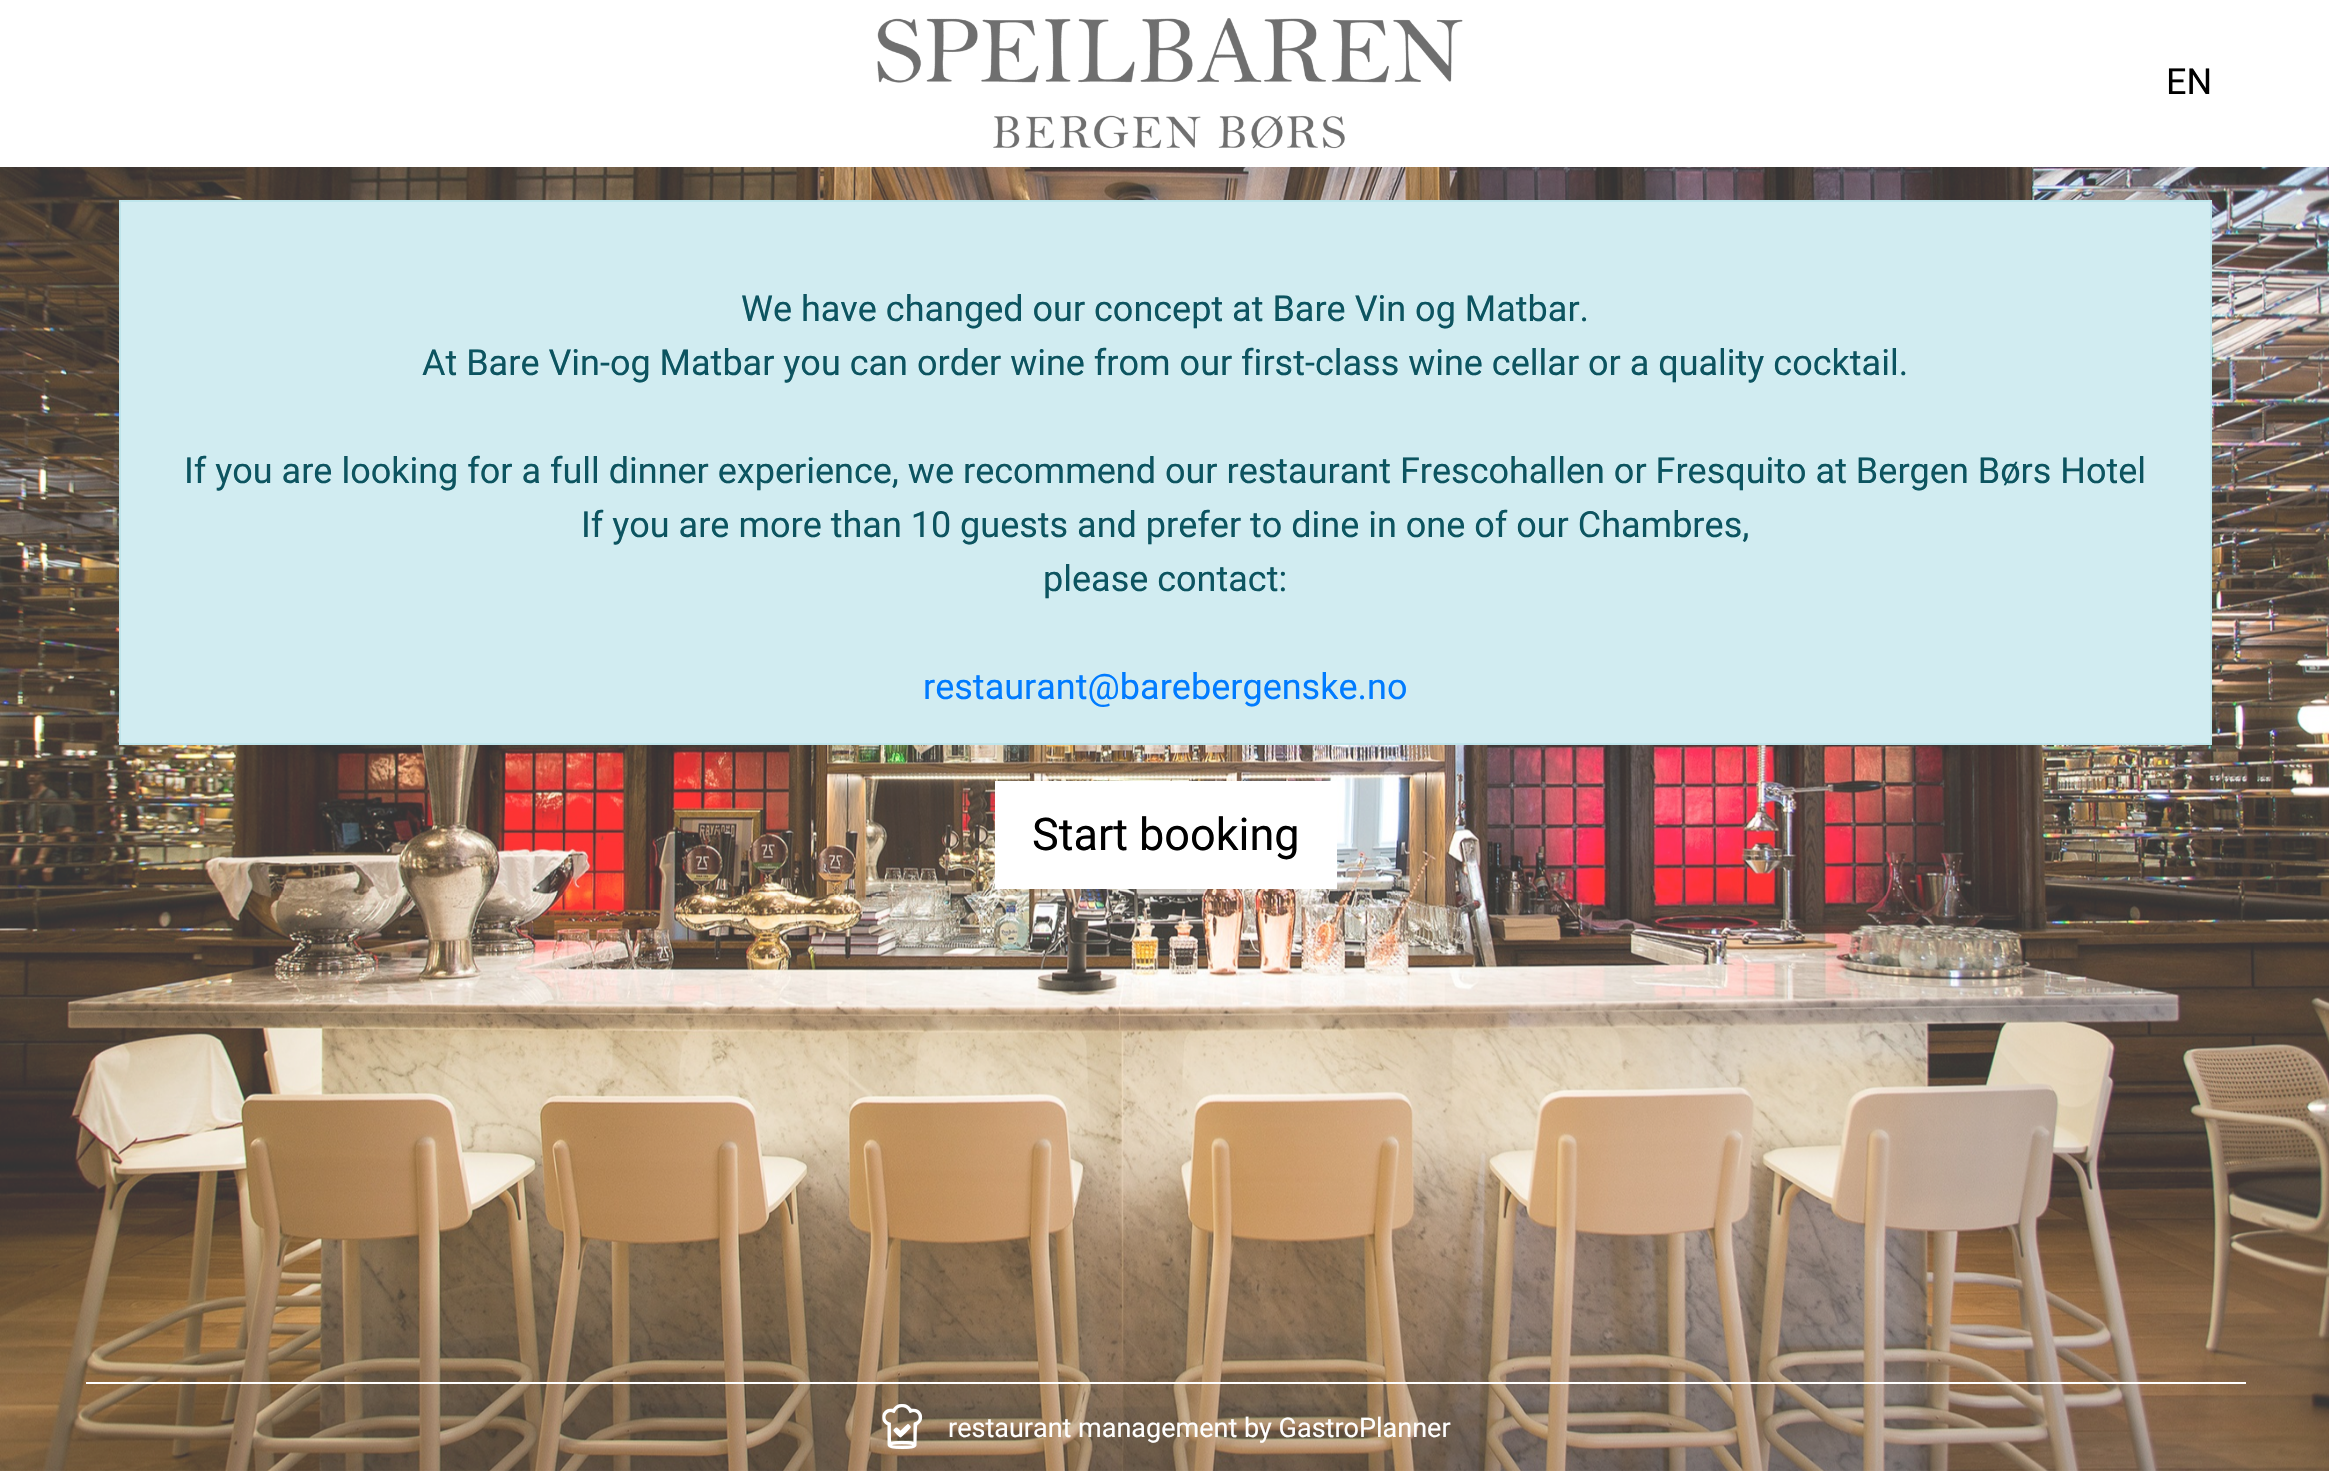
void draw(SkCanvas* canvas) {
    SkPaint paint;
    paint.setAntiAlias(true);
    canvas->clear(0xFFFFFFFF);
    canvas->drawImageRect(SkImages::DeferredFromEncodedData(SkData::MakeFromFileName("img1.png")), SkRect::MakeXYWH(0, 167, 2329, 1304), SkSamplingOptions());
    canvas->drawImageRect(SkImages::DeferredFromEncodedData(SkData::MakeFromFileName("img2.png")), SkRect::MakeXYWH(877, 18, 586, 131), SkSamplingOptions());
    SkFont font1(fontMgr->matchFamilyStyle("Roboto", SkFontStyle::Normal()), 36);
    font1.setSubpixel(true);
    paint.setColor(0xFF000000);
    canvas->drawString("EN", 2166, 94, font1, paint);
    paint.setColor(0xFFD1ECF1);
    canvas->drawRect(SkRect::MakeXYWH(120, 201, 2091, 543), paint);
    paint.setStyle(SkPaint::kStroke_Style);
    paint.setStrokeWidth(2);
    paint.setColor(0xFFBEE5EB);
    canvas->drawRect(SkRect::MakeXYWH(120, 201, 2091, 543), paint);
    paint.setStyle(SkPaint::kFill_Style);
    paint.setColor(0xFF0C5460);
    canvas->drawString("We have changed our concept at Bare Vin og Matbar.", 741, 321, font1, paint);
    canvas->drawString("At Bare Vin-og Matbar you can order wine from our first-class wine cellar or a quality cocktail.", 422, 375, font1, paint);
    canvas->drawString("If you are looking for a full dinner experience, we recommend our restaurant Frescohallen or Fresquito at Bergen Børs Hotel", 184, 483, font1, paint);
    canvas->drawString("If you are more than 10 guests and prefer to dine in one of our Chambres,", 581, 537, font1, paint);
    canvas->drawString("please contact:", 1043, 591, font1, paint);
    paint.setColor(0xFF007BFF);
    canvas->drawString("restaurant@barebergenske.no", 923, 699, font1, paint);
    paint.setColor(0xFFFFFFFF);
    canvas->drawRect(SkRect::MakeXYWH(995, 781, 342, 108), paint);
    SkFont font2(fontMgr->matchFamilyStyle("Roboto", SkFontStyle::Normal()), 45);
    font2.setSubpixel(true);
    paint.setColor(0xFF000000);
    canvas->drawString("Start booking", 1032, 850, font2, paint);
    paint.setColor(0xFFFFFFFF);
    canvas->drawRect(SkRect::MakeXYWH(86, 1382, 2160, 2), paint);
    canvas->drawImageRect(SkImages::DeferredFromEncodedData(SkData::MakeFromFileName("img3.png")), SkRect::MakeXYWH(882, 1404, 41, 45), SkSamplingOptions());
    SkFont font3(fontMgr->matchFamilyStyle("Roboto", SkFontStyle::Normal()), 27);
    font3.setSubpixel(true);
    canvas->drawString("restaurant management by GastroPlanner", 948, 1437, font3, paint);
}
